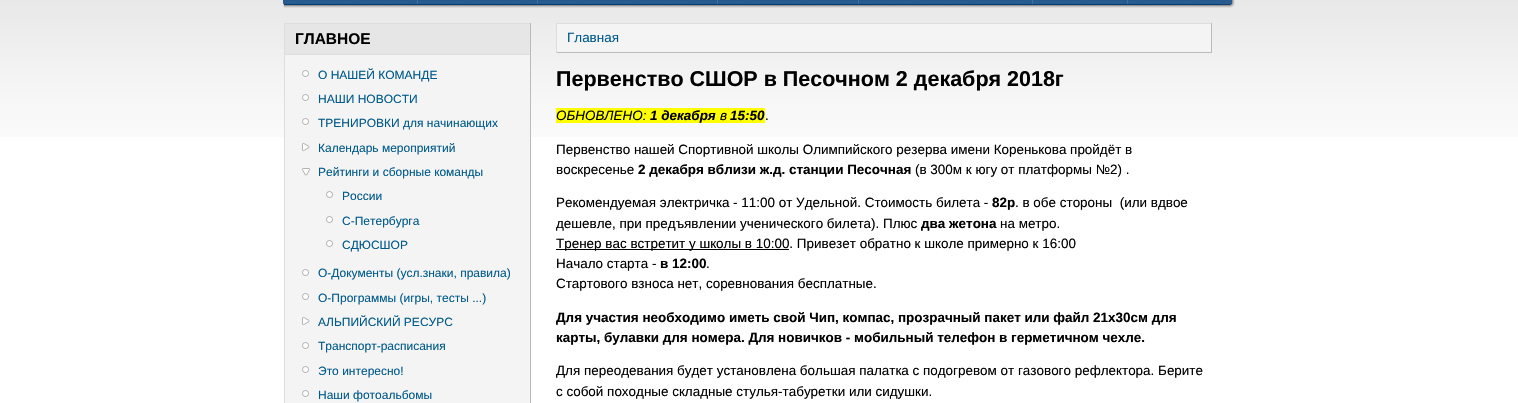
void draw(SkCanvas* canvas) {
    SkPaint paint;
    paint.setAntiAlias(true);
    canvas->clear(0xFFFFFFFF);
    canvas->drawImageRect(SkImages::DeferredFromEncodedData(SkData::MakeFromFileName("img1.png")), SkRect::MakeXYWH(0, 0, 1518, 137), SkSamplingOptions());
    canvas->drawImageRect(SkImages::DeferredFromEncodedData(SkData::MakeFromFileName("img2.png")), SkRect::MakeXYWH(283, 0, 938, 8), SkSamplingOptions());
    canvas->drawImageRect(SkImages::DeferredFromEncodedData(SkData::MakeFromFileName("img3.png")), SkRect::MakeXYWH(283, 3, 1, 5), SkSamplingOptions());
    canvas->drawImageRect(SkImages::DeferredFromEncodedData(SkData::MakeFromFileName("img4.png")), SkRect::MakeXYWH(417, 0, 1, 5), SkSamplingOptions());
    canvas->drawImageRect(SkImages::DeferredFromEncodedData(SkData::MakeFromFileName("img4.png")), SkRect::MakeXYWH(537, 0, 1, 5), SkSamplingOptions());
    canvas->drawImageRect(SkImages::DeferredFromEncodedData(SkData::MakeFromFileName("img4.png")), SkRect::MakeXYWH(717, 0, 1, 5), SkSamplingOptions());
    canvas->drawImageRect(SkImages::DeferredFromEncodedData(SkData::MakeFromFileName("img4.png")), SkRect::MakeXYWH(858, 0, 1, 5), SkSamplingOptions());
    canvas->drawImageRect(SkImages::DeferredFromEncodedData(SkData::MakeFromFileName("img4.png")), SkRect::MakeXYWH(1032, 0, 1, 5), SkSamplingOptions());
    canvas->drawImageRect(SkImages::DeferredFromEncodedData(SkData::MakeFromFileName("img4.png")), SkRect::MakeXYWH(1127, 0, 1, 5), SkSamplingOptions());
    canvas->drawImageRect(SkImages::DeferredFromEncodedData(SkData::MakeFromFileName("img5.png")), SkRect::MakeXYWH(1221, 0, 14, 8), SkSamplingOptions());
    paint.setColor(0xFFE6E6E6);
    canvas->drawRect(SkRect::MakeXYWH(285, 24, 245, 30), paint);
    paint.setColor(0xFFDDDDDD);
    canvas->drawRect(SkRect::MakeXYWH(284, 23, 247, 1), paint);
    paint.setColor(0xFFBBBBBB);
    canvas->drawRect(SkRect::MakeXYWH(530, 23, 1, 31), paint);
    paint.setColor(0xFFDDDDDD);
    canvas->drawRect(SkRect::MakeXYWH(284, 23, 1, 31), paint);
    SkFont font1(fontMgr->matchFamilyStyle("Liberation Sans", SkFontStyle::Bold()), 15.5f);
    font1.setSubpixel(true);
    paint.setColor(0xFF000000);
    canvas->drawString("ГЛАВНОЕ", 295, 44, font1, paint);
    paint.setColor(0xFFF4F4F4);
    canvas->drawRect(SkRect::MakeXYWH(285, 55, 245, 348), paint);
    paint.setColor(0xFFDDDDDD);
    canvas->drawRect(SkRect::MakeXYWH(284, 54, 247, 1), paint);
    paint.setColor(0xFFBBBBBB);
    canvas->drawRect(SkRect::MakeXYWH(530, 54, 1, 349), paint);
    paint.setColor(0xFFDDDDDD);
    canvas->drawRect(SkRect::MakeXYWH(284, 54, 1, 349), paint);
    canvas->drawImageRect(SkImages::DeferredFromEncodedData(SkData::MakeFromFileName("img6.png")), SkRect::MakeXYWH(302, 70, 7, 7), SkSamplingOptions());
    SkFont font2(fontMgr->matchFamilyStyle("Liberation Sans", SkFontStyle::Normal()), 12);
    font2.setSubpixel(true);
    paint.setColor(0xFF005A8C);
    canvas->drawString("О НАШЕЙ КОМАНДЕ", 318, 79, font2, paint);
    canvas->drawImageRect(SkImages::DeferredFromEncodedData(SkData::MakeFromFileName("img6.png")), SkRect::MakeXYWH(302, 94, 7, 7), SkSamplingOptions());
    canvas->drawString("НАШИ НОВОСТИ", 318, 103, font2, paint);
    canvas->drawImageRect(SkImages::DeferredFromEncodedData(SkData::MakeFromFileName("img6.png")), SkRect::MakeXYWH(302, 118, 7, 7), SkSamplingOptions());
    canvas->drawString("ТРЕНИРОВКИ для начинающих", 318, 127, font2, paint);
    canvas->drawImageRect(SkImages::DeferredFromEncodedData(SkData::MakeFromFileName("img7.png")), SkRect::MakeXYWH(302, 142, 8, 10), SkSamplingOptions());
    canvas->drawString("Календарь мероприятий", 318, 152, font2, paint);
    canvas->drawImageRect(SkImages::DeferredFromEncodedData(SkData::MakeFromFileName("img8.png")), SkRect::MakeXYWH(301, 168, 10, 8), SkSamplingOptions());
    canvas->drawString("Рейтинги и сборные команды", 318, 176, font2, paint);
    canvas->drawImageRect(SkImages::DeferredFromEncodedData(SkData::MakeFromFileName("img6.png")), SkRect::MakeXYWH(326, 191, 7, 7), SkSamplingOptions());
    canvas->drawString("России", 342, 200, font2, paint);
    canvas->drawImageRect(SkImages::DeferredFromEncodedData(SkData::MakeFromFileName("img6.png")), SkRect::MakeXYWH(326, 216, 7, 7), SkSamplingOptions());
    canvas->drawString("С-Петербурга", 342, 225, font2, paint);
    canvas->drawImageRect(SkImages::DeferredFromEncodedData(SkData::MakeFromFileName("img6.png")), SkRect::MakeXYWH(326, 240, 7, 7), SkSamplingOptions());
    canvas->drawString("СДЮСШОР", 342, 249, font2, paint);
    canvas->drawImageRect(SkImages::DeferredFromEncodedData(SkData::MakeFromFileName("img6.png")), SkRect::MakeXYWH(302, 269, 7, 7), SkSamplingOptions());
    canvas->drawString("О-Документы (усл.знаки, правила)", 318, 277, font2, paint);
    canvas->drawImageRect(SkImages::DeferredFromEncodedData(SkData::MakeFromFileName("img6.png")), SkRect::MakeXYWH(302, 293, 7, 7), SkSamplingOptions());
    canvas->drawString("О-Программы (игры, тесты ...)", 318, 302, font2, paint);
    canvas->drawImageRect(SkImages::DeferredFromEncodedData(SkData::MakeFromFileName("img7.png")), SkRect::MakeXYWH(302, 316, 8, 10), SkSamplingOptions());
    canvas->drawString("АЛЬПИЙСКИЙ РЕСУРС", 318, 326, font2, paint);
    canvas->drawImageRect(SkImages::DeferredFromEncodedData(SkData::MakeFromFileName("img6.png")), SkRect::MakeXYWH(302, 342, 7, 7), SkSamplingOptions());
    canvas->drawString("Транспорт-расписания", 318, 350, font2, paint);
    canvas->drawImageRect(SkImages::DeferredFromEncodedData(SkData::MakeFromFileName("img6.png")), SkRect::MakeXYWH(302, 366, 7, 7), SkSamplingOptions());
    canvas->drawString("Это интересно!", 318, 375, font2, paint);
    canvas->drawImageRect(SkImages::DeferredFromEncodedData(SkData::MakeFromFileName("img6.png")), SkRect::MakeXYWH(302, 390, 7, 7), SkSamplingOptions());
    canvas->drawString("Наши фотоальбомы", 318, 399, font2, paint);
    paint.setColor(0xFFF4F4F4);
    canvas->drawRect(SkRect::MakeXYWH(557, 24, 654, 28), paint);
    paint.setColor(0xFFDDDDDD);
    canvas->drawRect(SkRect::MakeXYWH(556, 23, 656, 1), paint);
    paint.setColor(0xFFBBBBBB);
    canvas->drawRect(SkRect::MakeXYWH(1211, 23, 1, 30), paint);
    canvas->drawRect(SkRect::MakeXYWH(556, 52, 656, 1), paint);
    paint.setColor(0xFFDDDDDD);
    canvas->drawRect(SkRect::MakeXYWH(556, 23, 1, 30), paint);
    SkFont font3(fontMgr->matchFamilyStyle("Liberation Sans", SkFontStyle::Normal()), 13.45f);
    font3.setSubpixel(true);
    paint.setColor(0xFF005A8C);
    canvas->drawString("Главная", 567, 42, font3, paint);
    SkFont font4(fontMgr->matchFamilyStyle("Liberation Sans", SkFontStyle::Bold()), 21.5f);
    font4.setSubpixel(true);
    paint.setColor(0xFF000000);
    canvas->drawString("Первенство СШОР в Песочном 2 декабря 2018г", 556, 86, font4, paint);
    paint.setColor(0xFFFFFF00);
    canvas->drawRect(SkRect::MakeXYWH(556, 108, 209, 15), paint);
    SkFont font5(fontMgr->matchFamilyStyle("Liberation Sans", SkFontStyle::Italic()), 13.45f);
    font5.setSubpixel(true);
    paint.setColor(0xFF000000);
    canvas->drawString("ОБНОВЛЕНО:", 556, 120, font5, paint);
    SkFont font6(fontMgr->matchFamilyStyle("Liberation Sans", SkFontStyle::BoldItalic()), 13.45f);
    font6.setSubpixel(true);
    canvas->drawString("1 декабря", 650, 120, font6, paint);
    canvas->drawString("в", 720, 120, font5, paint);
    canvas->drawString("15:50", 730, 120, font6, paint);
    canvas->drawString(".", 765, 120, font3, paint);
    canvas->drawString("Первенство нашей Спортивной школы Олимпийского резерва имени Коренькова пройдёт в", 556, 154, font3, paint);
    canvas->drawString("воскресенье", 556, 174, font3, paint);
    SkFont font7(fontMgr->matchFamilyStyle("Liberation Sans", SkFontStyle::Bold()), 13.45f);
    font7.setSubpixel(true);
    canvas->drawString("2 декабря вблизи ж.д. станции Песочная", 638, 174, font7, paint);
    canvas->drawString("(в 300м к югу от платформы №2) .", 915, 174, font3, paint);
    canvas->drawString("Рекомендуемая электричка - 11:00 от Удельной. Стоимость билета -", 556, 207, font3, paint);
    canvas->drawString("82р", 992, 207, font7, paint);
    canvas->drawString(". в обе стороны  (или вдвое", 1015, 207, font3, paint);
    canvas->drawString("дешевле, при предъявлении ученического билета). Плюс", 556, 228, font3, paint);
    canvas->drawString("два жетона", 921, 228, font7, paint);
    canvas->drawString("на метро.", 1000, 228, font3, paint);
    canvas->drawRect(SkRect::MakeXYWH(556, 249, 233, 1), paint);
    canvas->drawString("Тренер вас встретит у школы в 10:00. Привезет обратно к школе примерно к 16:00", 556, 248, font3, paint);
    canvas->drawString("Начало старта -", 556, 268, font3, paint);
    canvas->drawString("в 12:00", 660, 268, font7, paint);
    canvas->drawString(".", 706, 268, font3, paint);
    canvas->drawString("Стартового взноса нет, соревнования бесплатные.", 556, 288, font3, paint);
    canvas->drawString("Для участия необходимо иметь свой Чип, компас, прозрачный пакет или файл 21х30см для", 556, 322, font7, paint);
    canvas->drawString("карты, булавки для номера. Для новичков - мобильный телефон в герметичном чехле.", 556, 342, font7, paint);
    canvas->drawString("Для переодевания будет установлена большая палатка с подогревом от газового рефлектора. Берите", 556, 375, font3, paint);
    canvas->drawString("с собой походные складные стулья-табуретки или сидушки.", 556, 396, font3, paint);
}
